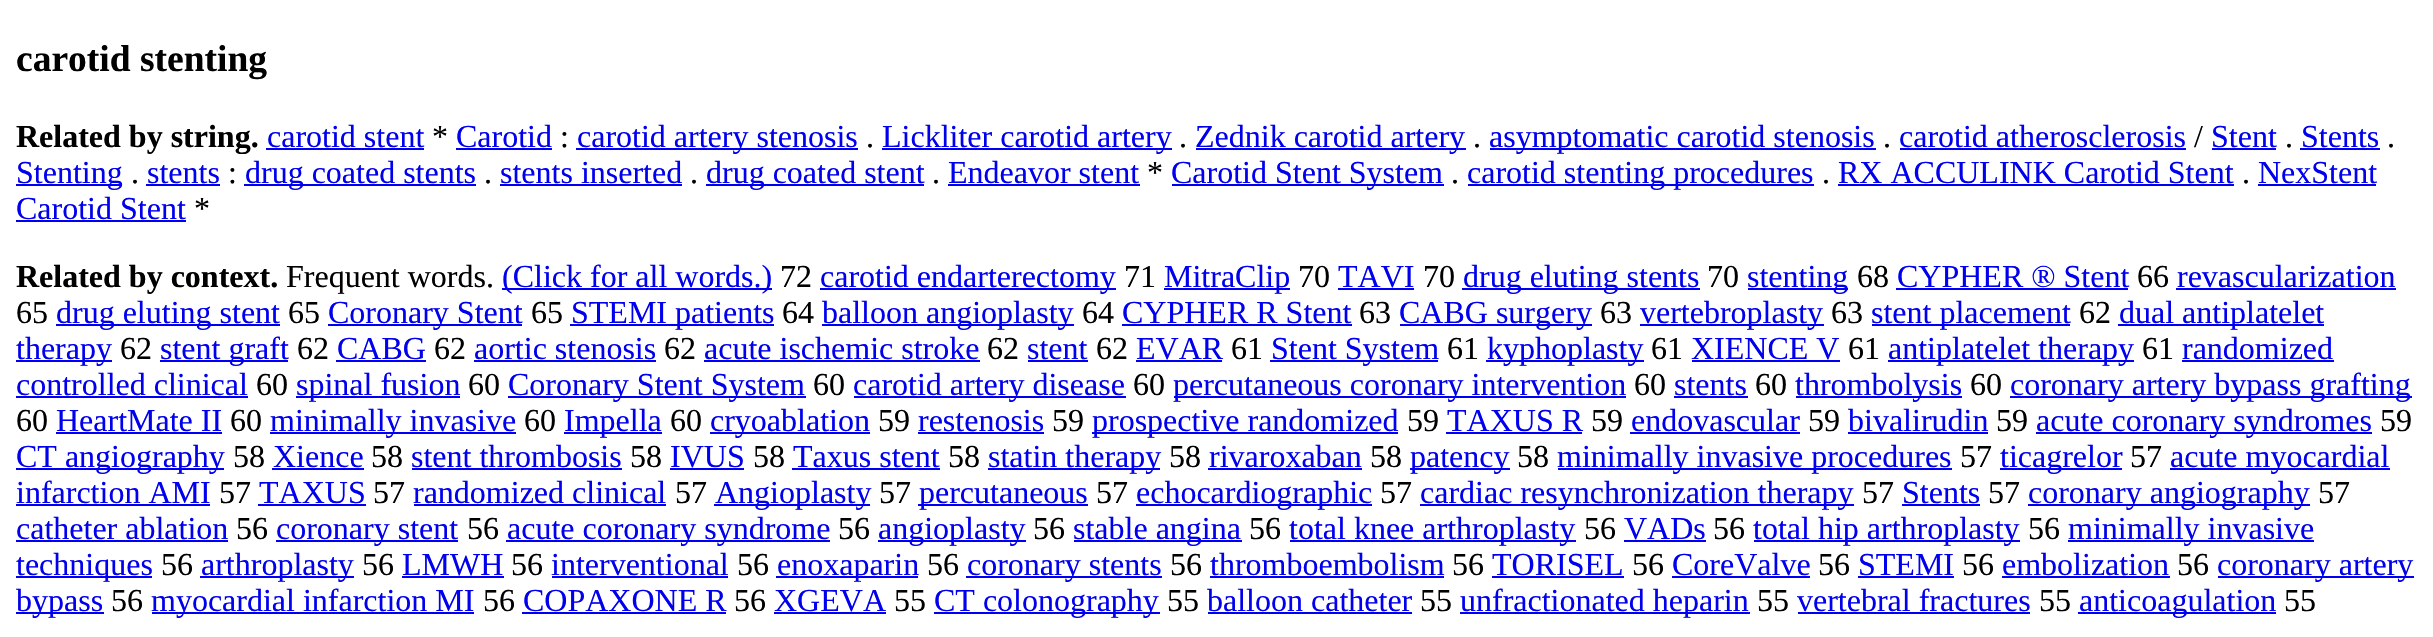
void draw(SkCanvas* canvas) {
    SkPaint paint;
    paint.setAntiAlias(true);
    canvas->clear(0xFFFFFFFF);
    SkFont font1(fontMgr->matchFamilyStyle("Liberation Serif", SkFontStyle::Bold()), 37.5f);
    font1.setSubpixel(true);
    paint.setColor(0xFF000000);
    canvas->drawString("carotid stenting", 16, 71, font1, paint);
    SkFont font2(fontMgr->matchFamilyStyle("Liberation Serif", SkFontStyle::Bold()), 32);
    font2.setSubpixel(true);
    canvas->drawString("Related by string.", 16, 147, font2, paint);
    SkFont font3(fontMgr->matchFamilyStyle("Liberation Serif", SkFontStyle::Normal()), 32);
    font3.setSubpixel(true);
    paint.setColor(0xFF0000EE);
    canvas->drawString("carotid stent", 267, 147, font3, paint);
    canvas->drawRect(SkRect::MakeXYWH(266, 148, 158, 2), paint);
    paint.setColor(0xFF000000);
    canvas->drawString("*", 432, 147, font3, paint);
    paint.setColor(0xFF0000EE);
    canvas->drawString("Carotid", 456, 147, font3, paint);
    canvas->drawRect(SkRect::MakeXYWH(456, 148, 96, 2), paint);
    paint.setColor(0xFF000000);
    canvas->drawString(":", 560, 147, font3, paint);
    paint.setColor(0xFF0000EE);
    canvas->drawRect(SkRect::MakeXYWH(576, 148, 282, 2), paint);
    canvas->drawString("carotid artery stenosis", 577, 147, font3, paint);
    paint.setColor(0xFF000000);
    canvas->drawString(".", 866, 147, font3, paint);
    paint.setColor(0xFF0000EE);
    canvas->drawRect(SkRect::MakeXYWH(882, 148, 290, 2), paint);
    canvas->drawString("Lickliter carotid artery", 882, 147, font3, paint);
    paint.setColor(0xFF000000);
    canvas->drawString(".", 1179, 147, font3, paint);
    paint.setColor(0xFF0000EE);
    canvas->drawRect(SkRect::MakeXYWH(1196, 148, 270, 2), paint);
    canvas->drawString("Zednik carotid artery", 1195, 147, font3, paint);
    paint.setColor(0xFF000000);
    canvas->drawString(".", 1473, 147, font3, paint);
    paint.setColor(0xFF0000EE);
    canvas->drawRect(SkRect::MakeXYWH(1490, 148, 386, 2), paint);
    canvas->drawString("asymptomatic carotid stenosis", 1489, 147, font3, paint);
    paint.setColor(0xFF000000);
    canvas->drawString(".", 1883, 147, font3, paint);
    paint.setColor(0xFF0000EE);
    canvas->drawString("carotid atherosclerosis", 1899, 147, font3, paint);
    canvas->drawRect(SkRect::MakeXYWH(1900, 148, 286, 2), paint);
    paint.setColor(0xFF000000);
    canvas->drawString("/", 2194, 147, font3, paint);
    paint.setColor(0xFF0000EE);
    canvas->drawString("Stent", 2211, 147, font3, paint);
    canvas->drawRect(SkRect::MakeXYWH(2212, 148, 64, 2), paint);
    paint.setColor(0xFF000000);
    canvas->drawString(".", 2285, 147, font3, paint);
    paint.setColor(0xFF0000EE);
    canvas->drawString("Stents", 2301, 147, font3, paint);
    canvas->drawRect(SkRect::MakeXYWH(2300, 148, 80, 2), paint);
    paint.setColor(0xFF000000);
    canvas->drawString(".", 2387, 147, font3, paint);
    paint.setColor(0xFF0000EE);
    canvas->drawRect(SkRect::MakeXYWH(16, 184, 106, 2), paint);
    canvas->drawString("Stenting", 16, 183, font3, paint);
    paint.setColor(0xFF000000);
    canvas->drawString(".", 131, 183, font3, paint);
    paint.setColor(0xFF0000EE);
    canvas->drawString("stents", 147, 183, font3, paint);
    canvas->drawRect(SkRect::MakeXYWH(146, 184, 74, 2), paint);
    paint.setColor(0xFF000000);
    canvas->drawString(":", 228, 183, font3, paint);
    paint.setColor(0xFF0000EE);
    canvas->drawRect(SkRect::MakeXYWH(244, 184, 232, 2), paint);
    canvas->drawString("drug coated stents", 245, 183, font3, paint);
    paint.setColor(0xFF000000);
    canvas->drawString(".", 484, 183, font3, paint);
    paint.setColor(0xFF0000EE);
    canvas->drawString("stents inserted", 500, 183, font3, paint);
    canvas->drawRect(SkRect::MakeXYWH(500, 184, 182, 2), paint);
    paint.setColor(0xFF000000);
    canvas->drawString(".", 690, 183, font3, paint);
    paint.setColor(0xFF0000EE);
    canvas->drawRect(SkRect::MakeXYWH(706, 184, 218, 2), paint);
    canvas->drawString("drug coated stent", 706, 183, font3, paint);
    paint.setColor(0xFF000000);
    canvas->drawString(".", 932, 183, font3, paint);
    paint.setColor(0xFF0000EE);
    canvas->drawString("Endeavor stent", 948, 183, font3, paint);
    canvas->drawRect(SkRect::MakeXYWH(948, 184, 192, 2), paint);
    paint.setColor(0xFF000000);
    canvas->drawString("*", 1147, 183, font3, paint);
    paint.setColor(0xFF0000EE);
    canvas->drawRect(SkRect::MakeXYWH(1172, 184, 272, 2), paint);
    canvas->drawString("Carotid Stent System", 1171, 183, font3, paint);
    paint.setColor(0xFF000000);
    canvas->drawString(".", 1451, 183, font3, paint);
    paint.setColor(0xFF0000EE);
    canvas->drawRect(SkRect::MakeXYWH(1468, 184, 346, 2), paint);
    canvas->drawString("carotid stenting procedures", 1467, 183, font3, paint);
    paint.setColor(0xFF000000);
    canvas->drawString(".", 1822, 183, font3, paint);
    paint.setColor(0xFF0000EE);
    canvas->drawString("RX ACCULINK Carotid Stent", 1838, 183, font3, paint);
    canvas->drawRect(SkRect::MakeXYWH(1838, 184, 396, 2), paint);
    paint.setColor(0xFF000000);
    canvas->drawString(".", 2242, 183, font3, paint);
    paint.setColor(0xFF0000EE);
    canvas->drawString("NexStent", 2258, 183, font3, paint);
    canvas->drawRect(SkRect::MakeXYWH(2258, 184, 118, 2), paint);
    canvas->drawString("Carotid Stent", 16, 219, font3, paint);
    canvas->drawRect(SkRect::MakeXYWH(16, 220, 170, 2), paint);
    paint.setColor(0xFF000000);
    canvas->drawString("*", 194, 219, font3, paint);
    canvas->drawString("Related by context.", 16, 287, font2, paint);
    canvas->drawString("Frequent words.", 286, 287, font3, paint);
    paint.setColor(0xFF0000EE);
    canvas->drawRect(SkRect::MakeXYWH(502, 288, 270, 2), paint);
    canvas->drawString("(Click for all words.)", 502, 287, font3, paint);
    paint.setColor(0xFF000000);
    canvas->drawString("72", 780, 287, font3, paint);
    paint.setColor(0xFF0000EE);
    canvas->drawRect(SkRect::MakeXYWH(820, 288, 296, 2), paint);
    canvas->drawString("carotid endarterectomy", 820, 287, font3, paint);
    paint.setColor(0xFF000000);
    canvas->drawString("71", 1124, 287, font3, paint);
    paint.setColor(0xFF0000EE);
    canvas->drawRect(SkRect::MakeXYWH(1164, 288, 126, 2), paint);
    canvas->drawString("MitraClip", 1164, 287, font3, paint);
    paint.setColor(0xFF000000);
    canvas->drawString("70", 1298, 287, font3, paint);
    paint.setColor(0xFF0000EE);
    canvas->drawString("TAVI", 1338, 287, font3, paint);
    canvas->drawRect(SkRect::MakeXYWH(1338, 288, 76, 2), paint);
    paint.setColor(0xFF000000);
    canvas->drawString("70", 1423, 287, font3, paint);
    paint.setColor(0xFF0000EE);
    canvas->drawRect(SkRect::MakeXYWH(1462, 288, 238, 2), paint);
    canvas->drawString("drug eluting stents", 1463, 287, font3, paint);
    paint.setColor(0xFF000000);
    canvas->drawString("70", 1707, 287, font3, paint);
    paint.setColor(0xFF0000EE);
    canvas->drawRect(SkRect::MakeXYWH(1748, 288, 100, 2), paint);
    canvas->drawString("stenting", 1747, 287, font3, paint);
    paint.setColor(0xFF000000);
    canvas->drawString("68", 1857, 287, font3, paint);
    paint.setColor(0xFF0000EE);
    canvas->drawString("CYPHER ® Stent", 1897, 287, font3, paint);
    canvas->drawRect(SkRect::MakeXYWH(1896, 288, 232, 2), paint);
    paint.setColor(0xFF000000);
    canvas->drawString("66", 2137, 287, font3, paint);
    paint.setColor(0xFF0000EE);
    canvas->drawString("revascularization", 2177, 287, font3, paint);
    canvas->drawRect(SkRect::MakeXYWH(2176, 288, 220, 2), paint);
    paint.setColor(0xFF000000);
    canvas->drawString("65", 16, 323, font3, paint);
    paint.setColor(0xFF0000EE);
    canvas->drawRect(SkRect::MakeXYWH(56, 324, 224, 2), paint);
    canvas->drawString("drug eluting stent", 56, 323, font3, paint);
    paint.setColor(0xFF000000);
    canvas->drawString("65", 288, 323, font3, paint);
    paint.setColor(0xFF0000EE);
    canvas->drawRect(SkRect::MakeXYWH(328, 324, 194, 2), paint);
    canvas->drawString("Coronary Stent", 328, 323, font3, paint);
    paint.setColor(0xFF000000);
    canvas->drawString("65", 531, 323, font3, paint);
    paint.setColor(0xFF0000EE);
    canvas->drawRect(SkRect::MakeXYWH(570, 324, 204, 2), paint);
    canvas->drawString("STEMI patients", 571, 323, font3, paint);
    paint.setColor(0xFF000000);
    canvas->drawString("64", 782, 323, font3, paint);
    paint.setColor(0xFF0000EE);
    canvas->drawRect(SkRect::MakeXYWH(822, 324, 252, 2), paint);
    canvas->drawString("balloon angioplasty", 822, 323, font3, paint);
    paint.setColor(0xFF000000);
    canvas->drawString("64", 1082, 323, font3, paint);
    paint.setColor(0xFF0000EE);
    canvas->drawString("CYPHER R Stent", 1122, 323, font3, paint);
    canvas->drawRect(SkRect::MakeXYWH(1122, 324, 230, 2), paint);
    paint.setColor(0xFF000000);
    canvas->drawString("63", 1359, 323, font3, paint);
    paint.setColor(0xFF0000EE);
    canvas->drawRect(SkRect::MakeXYWH(1400, 324, 192, 2), paint);
    canvas->drawString("CABG surgery", 1399, 323, font3, paint);
    paint.setColor(0xFF000000);
    canvas->drawString("63", 1600, 323, font3, paint);
    paint.setColor(0xFF0000EE);
    canvas->drawRect(SkRect::MakeXYWH(1640, 324, 184, 2), paint);
    canvas->drawString("vertebroplasty", 1640, 323, font3, paint);
    paint.setColor(0xFF000000);
    canvas->drawString("63", 1831, 323, font3, paint);
    paint.setColor(0xFF0000EE);
    canvas->drawRect(SkRect::MakeXYWH(1872, 324, 198, 2), paint);
    canvas->drawString("stent placement", 1871, 323, font3, paint);
    paint.setColor(0xFF000000);
    canvas->drawString("62", 2079, 323, font3, paint);
    paint.setColor(0xFF0000EE);
    canvas->drawRect(SkRect::MakeXYWH(2118, 324, 206, 2), paint);
    canvas->drawString("dual antiplatelet", 2119, 323, font3, paint);
    canvas->drawRect(SkRect::MakeXYWH(16, 360, 96, 2), paint);
    canvas->drawString("therapy", 16, 359, font3, paint);
    paint.setColor(0xFF000000);
    canvas->drawString("62", 120, 359, font3, paint);
    paint.setColor(0xFF0000EE);
    canvas->drawRect(SkRect::MakeXYWH(160, 360, 128, 2), paint);
    canvas->drawString("stent graft", 160, 359, font3, paint);
    paint.setColor(0xFF000000);
    canvas->drawString("62", 297, 359, font3, paint);
    paint.setColor(0xFF0000EE);
    canvas->drawString("CABG", 337, 359, font3, paint);
    canvas->drawRect(SkRect::MakeXYWH(336, 360, 90, 2), paint);
    paint.setColor(0xFF000000);
    canvas->drawString("62", 434, 359, font3, paint);
    paint.setColor(0xFF0000EE);
    canvas->drawString("aortic stenosis", 474, 359, font3, paint);
    canvas->drawRect(SkRect::MakeXYWH(474, 360, 182, 2), paint);
    paint.setColor(0xFF000000);
    canvas->drawString("62", 664, 359, font3, paint);
    paint.setColor(0xFF0000EE);
    canvas->drawString("acute ischemic stroke", 704, 359, font3, paint);
    canvas->drawRect(SkRect::MakeXYWH(704, 360, 276, 2), paint);
    paint.setColor(0xFF000000);
    canvas->drawString("62", 987, 359, font3, paint);
    paint.setColor(0xFF0000EE);
    canvas->drawString("stent", 1027, 359, font3, paint);
    canvas->drawRect(SkRect::MakeXYWH(1028, 360, 60, 2), paint);
    paint.setColor(0xFF000000);
    canvas->drawString("62", 1096, 359, font3, paint);
    paint.setColor(0xFF0000EE);
    canvas->drawString("EVAR", 1136, 359, font3, paint);
    canvas->drawRect(SkRect::MakeXYWH(1136, 360, 86, 2), paint);
    paint.setColor(0xFF000000);
    canvas->drawString("61", 1231, 359, font3, paint);
    paint.setColor(0xFF0000EE);
    canvas->drawRect(SkRect::MakeXYWH(1270, 360, 168, 2), paint);
    canvas->drawString("Stent System", 1271, 359, font3, paint);
    paint.setColor(0xFF000000);
    canvas->drawString("61", 1447, 359, font3, paint);
    paint.setColor(0xFF0000EE);
    canvas->drawRect(SkRect::MakeXYWH(1486, 360, 158, 2), paint);
    canvas->drawString("kyphoplasty", 1487, 359, font3, paint);
    paint.setColor(0xFF000000);
    canvas->drawString("61", 1651, 359, font3, paint);
    paint.setColor(0xFF0000EE);
    canvas->drawString("XIENCE V", 1691, 359, font3, paint);
    canvas->drawRect(SkRect::MakeXYWH(1692, 360, 148, 2), paint);
    paint.setColor(0xFF000000);
    canvas->drawString("61", 1848, 359, font3, paint);
    paint.setColor(0xFF0000EE);
    canvas->drawRect(SkRect::MakeXYWH(1888, 360, 246, 2), paint);
    canvas->drawString("antiplatelet therapy", 1888, 359, font3, paint);
    paint.setColor(0xFF000000);
    canvas->drawString("61", 2142, 359, font3, paint);
    paint.setColor(0xFF0000EE);
    canvas->drawString("randomized", 2182, 359, font3, paint);
    canvas->drawRect(SkRect::MakeXYWH(2182, 360, 152, 2), paint);
    canvas->drawString("controlled clinical", 16, 395, font3, paint);
    canvas->drawRect(SkRect::MakeXYWH(16, 396, 232, 2), paint);
    paint.setColor(0xFF000000);
    canvas->drawString("60", 256, 395, font3, paint);
    paint.setColor(0xFF0000EE);
    canvas->drawRect(SkRect::MakeXYWH(296, 396, 164, 2), paint);
    canvas->drawString("spinal fusion", 296, 395, font3, paint);
    paint.setColor(0xFF000000);
    canvas->drawString("60", 468, 395, font3, paint);
    paint.setColor(0xFF0000EE);
    canvas->drawRect(SkRect::MakeXYWH(508, 396, 298, 2), paint);
    canvas->drawString("Coronary Stent System", 508, 395, font3, paint);
    paint.setColor(0xFF000000);
    canvas->drawString("60", 813, 395, font3, paint);
    paint.setColor(0xFF0000EE);
    canvas->drawRect(SkRect::MakeXYWH(854, 396, 272, 2), paint);
    canvas->drawString("carotid artery disease", 853, 395, font3, paint);
    paint.setColor(0xFF000000);
    canvas->drawString("60", 1133, 395, font3, paint);
    paint.setColor(0xFF0000EE);
    canvas->drawRect(SkRect::MakeXYWH(1174, 396, 452, 2), paint);
    canvas->drawString("percutaneous coronary intervention", 1173, 395, font3, paint);
    paint.setColor(0xFF000000);
    canvas->drawString("60", 1634, 395, font3, paint);
    paint.setColor(0xFF0000EE);
    canvas->drawString("stents", 1674, 395, font3, paint);
    canvas->drawRect(SkRect::MakeXYWH(1674, 396, 74, 2), paint);
    paint.setColor(0xFF000000);
    canvas->drawString("60", 1755, 395, font3, paint);
    paint.setColor(0xFF0000EE);
    canvas->drawRect(SkRect::MakeXYWH(1796, 396, 166, 2), paint);
    canvas->drawString("thrombolysis", 1795, 395, font3, paint);
    paint.setColor(0xFF000000);
    canvas->drawString("60", 1970, 395, font3, paint);
    paint.setColor(0xFF0000EE);
    canvas->drawRect(SkRect::MakeXYWH(2010, 396, 402, 2), paint);
    canvas->drawString("coronary artery bypass grafting", 2010, 395, font3, paint);
    paint.setColor(0xFF000000);
    canvas->drawString("60", 16, 431, font3, paint);
    paint.setColor(0xFF0000EE);
    canvas->drawString("HeartMate II", 56, 431, font3, paint);
    canvas->drawRect(SkRect::MakeXYWH(56, 432, 166, 2), paint);
    paint.setColor(0xFF000000);
    canvas->drawString("60", 230, 431, font3, paint);
    paint.setColor(0xFF0000EE);
    canvas->drawRect(SkRect::MakeXYWH(270, 432, 246, 2), paint);
    canvas->drawString("minimally invasive", 270, 431, font3, paint);
    paint.setColor(0xFF000000);
    canvas->drawString("60", 524, 431, font3, paint);
    paint.setColor(0xFF0000EE);
    canvas->drawRect(SkRect::MakeXYWH(564, 432, 98, 2), paint);
    canvas->drawString("Impella", 564, 431, font3, paint);
    paint.setColor(0xFF000000);
    canvas->drawString("60", 670, 431, font3, paint);
    paint.setColor(0xFF0000EE);
    canvas->drawRect(SkRect::MakeXYWH(710, 432, 160, 2), paint);
    canvas->drawString("cryoablation", 710, 431, font3, paint);
    paint.setColor(0xFF000000);
    canvas->drawString("59", 878, 431, font3, paint);
    paint.setColor(0xFF0000EE);
    canvas->drawString("restenosis", 918, 431, font3, paint);
    canvas->drawRect(SkRect::MakeXYWH(918, 432, 126, 2), paint);
    paint.setColor(0xFF000000);
    canvas->drawString("59", 1052, 431, font3, paint);
    paint.setColor(0xFF0000EE);
    canvas->drawRect(SkRect::MakeXYWH(1092, 432, 306, 2), paint);
    canvas->drawString("prospective randomized", 1092, 431, font3, paint);
    paint.setColor(0xFF000000);
    canvas->drawString("59", 1407, 431, font3, paint);
    paint.setColor(0xFF0000EE);
    canvas->drawString("TAXUS R", 1447, 431, font3, paint);
    canvas->drawRect(SkRect::MakeXYWH(1446, 432, 136, 2), paint);
    paint.setColor(0xFF000000);
    canvas->drawString("59", 1591, 431, font3, paint);
    paint.setColor(0xFF0000EE);
    canvas->drawString("endovascular", 1631, 431, font3, paint);
    canvas->drawRect(SkRect::MakeXYWH(1630, 432, 170, 2), paint);
    paint.setColor(0xFF000000);
    canvas->drawString("59", 1808, 431, font3, paint);
    paint.setColor(0xFF0000EE);
    canvas->drawString("bivalirudin", 1848, 431, font3, paint);
    canvas->drawRect(SkRect::MakeXYWH(1848, 432, 140, 2), paint);
    paint.setColor(0xFF000000);
    canvas->drawString("59", 1996, 431, font3, paint);
    paint.setColor(0xFF0000EE);
    canvas->drawRect(SkRect::MakeXYWH(2036, 432, 336, 2), paint);
    canvas->drawString("acute coronary syndromes", 2036, 431, font3, paint);
    paint.setColor(0xFF000000);
    canvas->drawString("59", 2380, 431, font3, paint);
    paint.setColor(0xFF0000EE);
    canvas->drawRect(SkRect::MakeXYWH(16, 468, 208, 2), paint);
    canvas->drawString("CT angiography", 16, 467, font3, paint);
    paint.setColor(0xFF000000);
    canvas->drawString("58", 233, 467, font3, paint);
    paint.setColor(0xFF0000EE);
    canvas->drawString("Xience", 273, 467, font3, paint);
    canvas->drawRect(SkRect::MakeXYWH(272, 468, 92, 2), paint);
    paint.setColor(0xFF000000);
    canvas->drawString("58", 371, 467, font3, paint);
    paint.setColor(0xFF0000EE);
    canvas->drawString("stent thrombosis", 411, 467, font3, paint);
    canvas->drawRect(SkRect::MakeXYWH(412, 468, 210, 2), paint);
    paint.setColor(0xFF000000);
    canvas->drawString("58", 630, 467, font3, paint);
    paint.setColor(0xFF0000EE);
    canvas->drawString("IVUS", 670, 467, font3, paint);
    canvas->drawRect(SkRect::MakeXYWH(670, 468, 74, 2), paint);
    paint.setColor(0xFF000000);
    canvas->drawString("58", 753, 467, font3, paint);
    paint.setColor(0xFF0000EE);
    canvas->drawString("Taxus stent", 793, 467, font3, paint);
    canvas->drawRect(SkRect::MakeXYWH(792, 468, 148, 2), paint);
    paint.setColor(0xFF000000);
    canvas->drawString("58", 948, 467, font3, paint);
    paint.setColor(0xFF0000EE);
    canvas->drawRect(SkRect::MakeXYWH(988, 468, 172, 2), paint);
    canvas->drawString("statin therapy", 988, 467, font3, paint);
    paint.setColor(0xFF000000);
    canvas->drawString("58", 1169, 467, font3, paint);
    paint.setColor(0xFF0000EE);
    canvas->drawString("rivaroxaban", 1209, 467, font3, paint);
    canvas->drawRect(SkRect::MakeXYWH(1208, 468, 154, 2), paint);
    paint.setColor(0xFF000000);
    canvas->drawString("58", 1370, 467, font3, paint);
    paint.setColor(0xFF0000EE);
    canvas->drawRect(SkRect::MakeXYWH(1410, 468, 100, 2), paint);
    canvas->drawString("patency", 1410, 467, font3, paint);
    paint.setColor(0xFF000000);
    canvas->drawString("58", 1517, 467, font3, paint);
    paint.setColor(0xFF0000EE);
    canvas->drawRect(SkRect::MakeXYWH(1558, 468, 394, 2), paint);
    canvas->drawString("minimally invasive procedures", 1557, 467, font3, paint);
    paint.setColor(0xFF000000);
    canvas->drawString("57", 1960, 467, font3, paint);
    paint.setColor(0xFF0000EE);
    canvas->drawRect(SkRect::MakeXYWH(2000, 468, 122, 2), paint);
    canvas->drawString("ticagrelor", 2000, 467, font3, paint);
    paint.setColor(0xFF000000);
    canvas->drawString("57", 2130, 467, font3, paint);
    paint.setColor(0xFF0000EE);
    canvas->drawRect(SkRect::MakeXYWH(2170, 468, 220, 2), paint);
    canvas->drawString("acute myocardial", 2170, 467, font3, paint);
    canvas->drawString("infarction AMI", 16, 503, font3, paint);
    canvas->drawRect(SkRect::MakeXYWH(16, 504, 194, 2), paint);
    paint.setColor(0xFF000000);
    canvas->drawString("57", 219, 503, font3, paint);
    paint.setColor(0xFF0000EE);
    canvas->drawString("TAXUS", 259, 503, font3, paint);
    canvas->drawRect(SkRect::MakeXYWH(258, 504, 108, 2), paint);
    paint.setColor(0xFF000000);
    canvas->drawString("57", 373, 503, font3, paint);
    paint.setColor(0xFF0000EE);
    canvas->drawString("randomized clinical", 413, 503, font3, paint);
    canvas->drawRect(SkRect::MakeXYWH(414, 504, 252, 2), paint);
    paint.setColor(0xFF000000);
    canvas->drawString("57", 675, 503, font3, paint);
    paint.setColor(0xFF0000EE);
    canvas->drawRect(SkRect::MakeXYWH(714, 504, 156, 2), paint);
    canvas->drawString("Angioplasty", 715, 503, font3, paint);
    paint.setColor(0xFF000000);
    canvas->drawString("57", 879, 503, font3, paint);
    paint.setColor(0xFF0000EE);
    canvas->drawRect(SkRect::MakeXYWH(918, 504, 170, 2), paint);
    canvas->drawString("percutaneous", 919, 503, font3, paint);
    paint.setColor(0xFF000000);
    canvas->drawString("57", 1096, 503, font3, paint);
    paint.setColor(0xFF0000EE);
    canvas->drawRect(SkRect::MakeXYWH(1136, 504, 236, 2), paint);
    canvas->drawString("echocardiographic", 1136, 503, font3, paint);
    paint.setColor(0xFF000000);
    canvas->drawString("57", 1380, 503, font3, paint);
    paint.setColor(0xFF0000EE);
    canvas->drawRect(SkRect::MakeXYWH(1420, 504, 434, 2), paint);
    canvas->drawString("cardiac resynchronization therapy", 1420, 503, font3, paint);
    paint.setColor(0xFF000000);
    canvas->drawString("57", 1862, 503, font3, paint);
    paint.setColor(0xFF0000EE);
    canvas->drawString("Stents", 1902, 503, font3, paint);
    canvas->drawRect(SkRect::MakeXYWH(1902, 504, 78, 2), paint);
    paint.setColor(0xFF000000);
    canvas->drawString("57", 1988, 503, font3, paint);
    paint.setColor(0xFF0000EE);
    canvas->drawRect(SkRect::MakeXYWH(2028, 504, 282, 2), paint);
    canvas->drawString("coronary angiography", 2028, 503, font3, paint);
    paint.setColor(0xFF000000);
    canvas->drawString("57", 2318, 503, font3, paint);
    paint.setColor(0xFF0000EE);
    canvas->drawString("catheter ablation", 16, 539, font3, paint);
    canvas->drawRect(SkRect::MakeXYWH(16, 540, 212, 2), paint);
    paint.setColor(0xFF000000);
    canvas->drawString("56", 236, 539, font3, paint);
    paint.setColor(0xFF0000EE);
    canvas->drawRect(SkRect::MakeXYWH(276, 540, 182, 2), paint);
    canvas->drawString("coronary stent", 276, 539, font3, paint);
    paint.setColor(0xFF000000);
    canvas->drawString("56", 467, 539, font3, paint);
    paint.setColor(0xFF0000EE);
    canvas->drawRect(SkRect::MakeXYWH(506, 540, 324, 2), paint);
    canvas->drawString("acute coronary syndrome", 507, 539, font3, paint);
    paint.setColor(0xFF000000);
    canvas->drawString("56", 838, 539, font3, paint);
    paint.setColor(0xFF0000EE);
    canvas->drawRect(SkRect::MakeXYWH(878, 540, 148, 2), paint);
    canvas->drawString("angioplasty", 878, 539, font3, paint);
    paint.setColor(0xFF000000);
    canvas->drawString("56", 1033, 539, font3, paint);
    paint.setColor(0xFF0000EE);
    canvas->drawRect(SkRect::MakeXYWH(1074, 540, 168, 2), paint);
    canvas->drawString("stable angina", 1073, 539, font3, paint);
    paint.setColor(0xFF000000);
    canvas->drawString("56", 1249, 539, font3, paint);
    paint.setColor(0xFF0000EE);
    canvas->drawRect(SkRect::MakeXYWH(1290, 540, 286, 2), paint);
    canvas->drawString("total knee arthroplasty", 1289, 539, font3, paint);
    paint.setColor(0xFF000000);
    canvas->drawString("56", 1584, 539, font3, paint);
    paint.setColor(0xFF0000EE);
    canvas->drawString("VADs", 1624, 539, font3, paint);
    canvas->drawRect(SkRect::MakeXYWH(1624, 540, 82, 2), paint);
    paint.setColor(0xFF000000);
    canvas->drawString("56", 1713, 539, font3, paint);
    paint.setColor(0xFF0000EE);
    canvas->drawRect(SkRect::MakeXYWH(1754, 540, 266, 2), paint);
    canvas->drawString("total hip arthroplasty", 1753, 539, font3, paint);
    paint.setColor(0xFF000000);
    canvas->drawString("56", 2028, 539, font3, paint);
    paint.setColor(0xFF0000EE);
    canvas->drawRect(SkRect::MakeXYWH(2068, 540, 246, 2), paint);
    canvas->drawString("minimally invasive", 2068, 539, font3, paint);
    canvas->drawRect(SkRect::MakeXYWH(16, 576, 136, 2), paint);
    canvas->drawString("techniques", 16, 575, font3, paint);
    paint.setColor(0xFF000000);
    canvas->drawString("56", 161, 575, font3, paint);
    paint.setColor(0xFF0000EE);
    canvas->drawRect(SkRect::MakeXYWH(200, 576, 154, 2), paint);
    canvas->drawString("arthroplasty", 201, 575, font3, paint);
    paint.setColor(0xFF000000);
    canvas->drawString("56", 362, 575, font3, paint);
    paint.setColor(0xFF0000EE);
    canvas->drawString("LMWH", 402, 575, font3, paint);
    canvas->drawRect(SkRect::MakeXYWH(402, 576, 102, 2), paint);
    paint.setColor(0xFF000000);
    canvas->drawString("56", 511, 575, font3, paint);
    paint.setColor(0xFF0000EE);
    canvas->drawString("interventional", 551, 575, font3, paint);
    canvas->drawRect(SkRect::MakeXYWH(552, 576, 176, 2), paint);
    paint.setColor(0xFF000000);
    canvas->drawString("56", 737, 575, font3, paint);
    paint.setColor(0xFF0000EE);
    canvas->drawRect(SkRect::MakeXYWH(776, 576, 142, 2), paint);
    canvas->drawString("enoxaparin", 777, 575, font3, paint);
    paint.setColor(0xFF000000);
    canvas->drawString("56", 927, 575, font3, paint);
    paint.setColor(0xFF0000EE);
    canvas->drawRect(SkRect::MakeXYWH(966, 576, 196, 2), paint);
    canvas->drawString("coronary stents", 967, 575, font3, paint);
    paint.setColor(0xFF000000);
    canvas->drawString("56", 1170, 575, font3, paint);
    paint.setColor(0xFF0000EE);
    canvas->drawString("thromboembolism", 1210, 575, font3, paint);
    canvas->drawRect(SkRect::MakeXYWH(1210, 576, 234, 2), paint);
    paint.setColor(0xFF000000);
    canvas->drawString("56", 1452, 575, font3, paint);
    paint.setColor(0xFF0000EE);
    canvas->drawString("TORISEL", 1492, 575, font3, paint);
    canvas->drawRect(SkRect::MakeXYWH(1492, 576, 132, 2), paint);
    paint.setColor(0xFF000000);
    canvas->drawString("56", 1632, 575, font3, paint);
    paint.setColor(0xFF0000EE);
    canvas->drawString("CoreValve", 1672, 575, font3, paint);
    canvas->drawRect(SkRect::MakeXYWH(1672, 576, 138, 2), paint);
    paint.setColor(0xFF000000);
    canvas->drawString("56", 1818, 575, font3, paint);
    paint.setColor(0xFF0000EE);
    canvas->drawString("STEMI", 1858, 575, font3, paint);
    canvas->drawRect(SkRect::MakeXYWH(1858, 576, 96, 2), paint);
    paint.setColor(0xFF000000);
    canvas->drawString("56", 1962, 575, font3, paint);
    paint.setColor(0xFF0000EE);
    canvas->drawString("embolization", 2002, 575, font3, paint);
    canvas->drawRect(SkRect::MakeXYWH(2002, 576, 168, 2), paint);
    paint.setColor(0xFF000000);
    canvas->drawString("56", 2177, 575, font3, paint);
    paint.setColor(0xFF0000EE);
    canvas->drawRect(SkRect::MakeXYWH(2218, 576, 196, 2), paint);
    canvas->drawString("coronary artery", 2217, 575, font3, paint);
    canvas->drawRect(SkRect::MakeXYWH(16, 612, 88, 2), paint);
    canvas->drawString("bypass", 16, 611, font3, paint);
    paint.setColor(0xFF000000);
    canvas->drawString("56", 111, 611, font3, paint);
    paint.setColor(0xFF0000EE);
    canvas->drawRect(SkRect::MakeXYWH(152, 612, 322, 2), paint);
    canvas->drawString("myocardial infarction MI", 151, 611, font3, paint);
    paint.setColor(0xFF000000);
    canvas->drawString("56", 483, 611, font3, paint);
    paint.setColor(0xFF0000EE);
    canvas->drawString("COPAXONE R", 523, 611, font3, paint);
    canvas->drawRect(SkRect::MakeXYWH(522, 612, 204, 2), paint);
    paint.setColor(0xFF000000);
    canvas->drawString("56", 734, 611, font3, paint);
    paint.setColor(0xFF0000EE);
    canvas->drawString("XGEVA", 774, 611, font3, paint);
    canvas->drawRect(SkRect::MakeXYWH(774, 612, 112, 2), paint);
    paint.setColor(0xFF000000);
    canvas->drawString("55", 894, 611, font3, paint);
    paint.setColor(0xFF0000EE);
    canvas->drawRect(SkRect::MakeXYWH(934, 612, 226, 2), paint);
    canvas->drawString("CT colonography", 934, 611, font3, paint);
    paint.setColor(0xFF000000);
    canvas->drawString("55", 1167, 611, font3, paint);
    paint.setColor(0xFF0000EE);
    canvas->drawString("balloon catheter", 1207, 611, font3, paint);
    canvas->drawRect(SkRect::MakeXYWH(1208, 612, 204, 2), paint);
    paint.setColor(0xFF000000);
    canvas->drawString("55", 1420, 611, font3, paint);
    paint.setColor(0xFF0000EE);
    canvas->drawRect(SkRect::MakeXYWH(1460, 612, 290, 2), paint);
    canvas->drawString("unfractionated heparin", 1460, 611, font3, paint);
    paint.setColor(0xFF000000);
    canvas->drawString("55", 1757, 611, font3, paint);
    paint.setColor(0xFF0000EE);
    canvas->drawString("vertebral fractures", 1797, 611, font3, paint);
    canvas->drawRect(SkRect::MakeXYWH(1798, 612, 232, 2), paint);
    paint.setColor(0xFF000000);
    canvas->drawString("55", 2039, 611, font3, paint);
    paint.setColor(0xFF0000EE);
    canvas->drawRect(SkRect::MakeXYWH(2078, 612, 198, 2), paint);
    canvas->drawString("anticoagulation", 2079, 611, font3, paint);
    paint.setColor(0xFF000000);
    canvas->drawString("55", 2284, 611, font3, paint);
}
